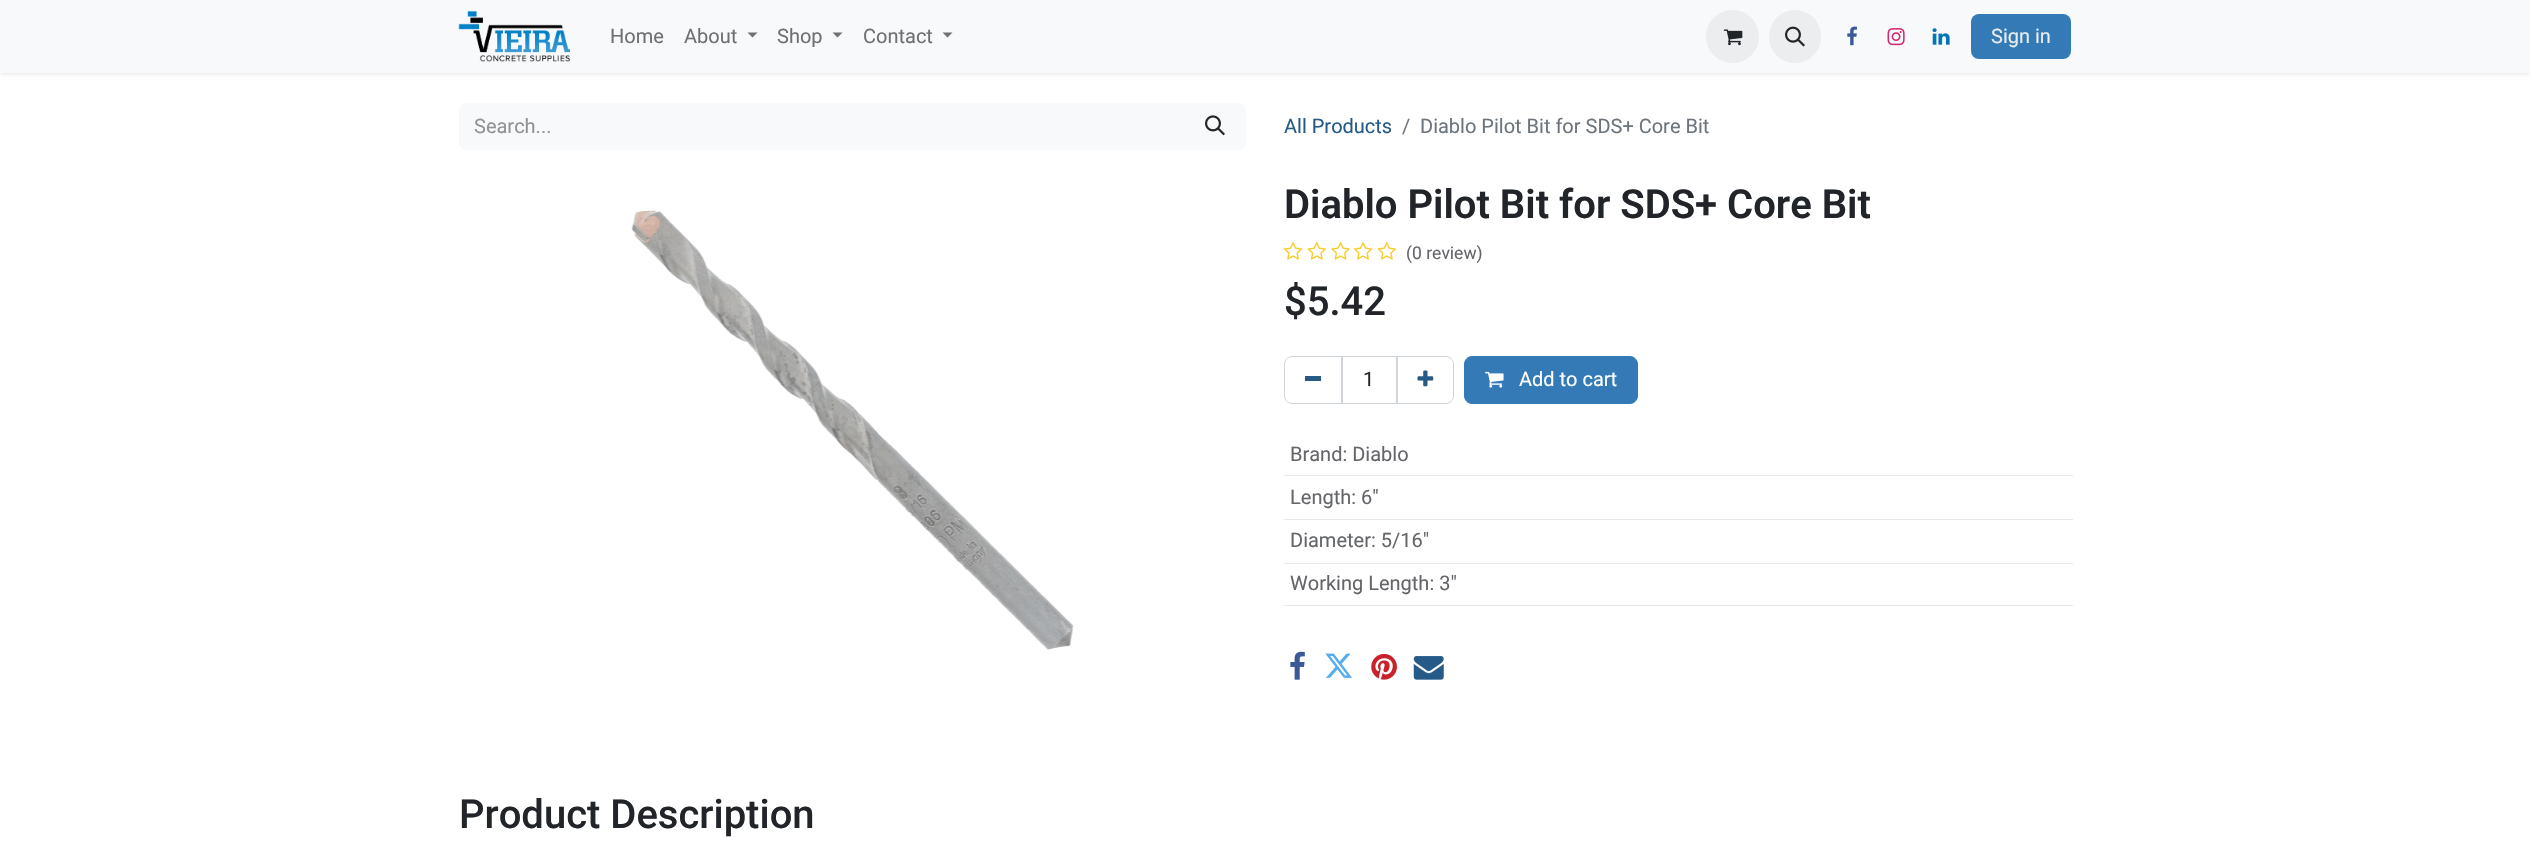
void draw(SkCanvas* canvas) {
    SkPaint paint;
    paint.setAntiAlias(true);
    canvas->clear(0xFFFFFFFF);
    paint.setColor(0x1A000000);
    paint.setMaskFilter(SkMaskFilter::MakeBlur(kNormal_SkBlurStyle, 2));
    canvas->drawRect(SkRect::MakeXYWH(0, 1, 2530, 73), paint);
    paint.setMaskFilter(nullptr);
    paint.setColor(0xFFF8F9FA);
    canvas->drawRect(SkRect::MakeXYWH(0, 0, 2530, 73), paint);
    canvas->drawImageRect(SkImages::DeferredFromEncodedData(SkData::MakeFromFileName("img1.png")), SkRect::MakeXYWH(458, 11, 112, 51), SkSamplingOptions());
    SkFont font1(fontMgr->matchFamilyStyle("Roboto", SkFontStyle::Normal()), 20);
    font1.setSubpixel(true);
    paint.setColor(0xFF707071);
    canvas->drawString("Home", 610, 43, font1, paint);
    canvas->drawString("About", 684, 43, font1, paint);
    canvas->drawPath(SkPathBuilder().moveTo(747.5f, 32.5f).lineTo(757.5f, 32.5f).lineTo(752.5f, 37.5f).close().detach(), paint);
    canvas->drawString("Shop", 777, 43, font1, paint);
    canvas->drawPath(SkPathBuilder().moveTo(832.5f, 32.5f).lineTo(842.5f, 32.5f).lineTo(837.5f, 37.5f).close().detach(), paint);
    canvas->drawString("Contact", 863, 43, font1, paint);
    canvas->drawPath(SkPathBuilder().moveTo(942.5f, 32.5f).lineTo(952.5f, 32.5f).lineTo(947.5f, 37.5f).close().detach(), paint);
    paint.setColor(0xFFECEDEE);
    canvas->drawCircle(1732.5f, 36.5f, 26.5f, paint);
    canvas->drawImageRect(SkImages::DeferredFromEncodedData(SkData::MakeFromFileName("img2.png")), SkRect::MakeXYWH(1723, 29, 20, 17), SkSamplingOptions());
    canvas->drawRoundRect(SkRect::MakeXYWH(1769, 10, 52, 53), 26, 26, paint);
    canvas->drawImageRect(SkImages::DeferredFromEncodedData(SkData::MakeFromFileName("img3.png")), SkRect::MakeXYWH(1785, 26, 20, 21), SkSamplingOptions());
    canvas->drawImageRect(SkImages::DeferredFromEncodedData(SkData::MakeFromFileName("img4.png")), SkRect::MakeXYWH(1847, 26, 10, 20), SkSamplingOptions());
    canvas->drawImageRect(SkImages::DeferredFromEncodedData(SkData::MakeFromFileName("img5.png")), SkRect::MakeXYWH(1887, 28, 18, 18), SkSamplingOptions());
    canvas->drawImageRect(SkImages::DeferredFromEncodedData(SkData::MakeFromFileName("img6.png")), SkRect::MakeXYWH(1932, 28, 18, 17), SkSamplingOptions());
    paint.setColor(0xFF337AB7);
    canvas->drawRoundRect(SkRect::MakeXYWH(1971, 14, 100, 45), 8, 8, paint);
    paint.setColor(0xFFE9ECEF);
    canvas->drawString("Sign in", 1991, 43, font1, paint);
    paint.setColor(0xFFF8F9FA);
    canvas->drawPath(SkPathBuilder().moveTo(467, 103).lineTo(1185, 103).lineTo(1185, 150).lineTo(467, 150).cubicTo(462.5f, 150, 459, 146.5f, 459, 142).lineTo(459, 111).cubicTo(459, 106.5f, 462.5f, 103, 467, 103).close().detach(), paint);
    paint.setColor(0xFF909294);
    canvas->drawString("Search...", 474, 133, font1, paint);
    paint.setColor(0xFFF8F9FA);
    canvas->drawPath(SkPathBuilder().moveTo(1184, 103).lineTo(1238, 103).cubicTo(1242.5f, 103, 1246, 106.5f, 1246, 111).lineTo(1246, 142).cubicTo(1246, 146.5f, 1242.5f, 150, 1238, 150).lineTo(1184, 150).close().detach(), paint);
    canvas->drawImageRect(SkImages::DeferredFromEncodedData(SkData::MakeFromFileName("img7.png")), SkRect::MakeXYWH(1205, 115, 20, 21), SkSamplingOptions());
    paint.setColor(0xFF265A87);
    canvas->drawString("All Products", 1284, 133, font1, paint);
    paint.setColor(0xFF6C757D);
    canvas->drawString("/", 1402, 133, font1, paint);
    canvas->drawString("Diablo Pilot Bit for SDS+ Core Bit", 1420, 133, font1, paint);
    canvas->drawImageRect(SkImages::DeferredFromEncodedData(SkData::MakeFromFileName("img8.png")), SkRect::MakeXYWH(631, 210, 443, 440), SkSamplingOptions());
    SkFont font2(fontMgr->matchFamilyStyle("Roboto", SkFontStyle(600, SkFontStyle::kNormal_Width, SkFontStyle::kUpright_Slant)), 40);
    font2.setSubpixel(true);
    paint.setColor(0xFF212529);
    canvas->drawString("Diablo Pilot Bit for SDS+ Core Bit", 1284, 218, font2, paint);
    canvas->drawImageRect(SkImages::DeferredFromEncodedData(SkData::MakeFromFileName("img9.png")), SkRect::MakeXYWH(1283, 242, 20, 18), SkSamplingOptions());
    canvas->drawImageRect(SkImages::DeferredFromEncodedData(SkData::MakeFromFileName("img10.png")), SkRect::MakeXYWH(1307, 242, 19, 18), SkSamplingOptions());
    canvas->drawImageRect(SkImages::DeferredFromEncodedData(SkData::MakeFromFileName("img11.png")), SkRect::MakeXYWH(1331, 242, 19, 18), SkSamplingOptions());
    canvas->drawImageRect(SkImages::DeferredFromEncodedData(SkData::MakeFromFileName("img9.png")), SkRect::MakeXYWH(1353, 242, 20, 18), SkSamplingOptions());
    canvas->drawImageRect(SkImages::DeferredFromEncodedData(SkData::MakeFromFileName("img10.png")), SkRect::MakeXYWH(1377, 242, 19, 18), SkSamplingOptions());
    SkFont font3(fontMgr->matchFamilyStyle("Roboto", SkFontStyle::Normal()), 17.5f);
    font3.setSubpixel(true);
    paint.setColor(0xFF646669);
    canvas->drawString("(0 review)", 1406, 259, font3, paint);
    SkFont font4(fontMgr->matchFamilyStyle("Roboto", SkFontStyle(500, SkFontStyle::kNormal_Width, SkFontStyle::kUpright_Slant)), 40);
    font4.setSubpixel(true);
    paint.setColor(0xFF212529);
    canvas->drawString("$5.42", 1284, 315, font4, paint);
    paint.setStyle(SkPaint::kStroke_Style);
    paint.setStrokeWidth(1);
    paint.setColor(0xFFCED4DA);
    canvas->drawRect(SkRect::MakeXYWH(1341.5f, 356.5f, 56, 47), paint);
    canvas->drawPath(SkPathBuilder().moveTo(1292, 356.5f).lineTo(1342.5f, 356.5f).lineTo(1342.5f, 403.5f).lineTo(1292, 403.5f).cubicTo(1288, 403.5f, 1284.5f, 400, 1284.5f, 396).lineTo(1284.5f, 364).cubicTo(1284.5f, 360, 1288, 356.5f, 1292, 356.5f).close().detach(), paint);
    paint.setStyle(SkPaint::kFill_Style);
    paint.setColor(0xFF265A87);
    canvas->drawRect(SkRect::MakeXYWH(1305, 376, 16, 5), paint);
    paint.setColor(0xFF212529);
    canvas->drawString("1", 1363, 386, font1, paint);
    paint.setStyle(SkPaint::kStroke_Style);
    paint.setColor(0xFFCED4DA);
    canvas->drawPath(SkPathBuilder().moveTo(1396.5f, 356.5f).lineTo(1446, 356.5f).cubicTo(1450, 356.5f, 1453.5f, 360, 1453.5f, 364).lineTo(1453.5f, 396).cubicTo(1453.5f, 400, 1450, 403.5f, 1446, 403.5f).lineTo(1396.5f, 403.5f).close().detach(), paint);
    canvas->drawImageRect(SkImages::DeferredFromEncodedData(SkData::MakeFromFileName("img12.png")), SkRect::MakeXYWH(1417, 370, 17, 17), SkSamplingOptions());
    paint.setStyle(SkPaint::kFill_Style);
    paint.setColor(0xFF337AB7);
    canvas->drawRoundRect(SkRect::MakeXYWH(1464.5f, 356.5f, 173, 47), 7.5f, 7.5f, paint);
    paint.setStyle(SkPaint::kStroke_Style);
    canvas->drawRoundRect(SkRect::MakeXYWH(1464.5f, 356.5f, 173, 47), 7.5f, 7.5f, paint);
    canvas->drawImageRect(SkImages::DeferredFromEncodedData(SkData::MakeFromFileName("img13.png")), SkRect::MakeXYWH(1485, 371, 19, 17), SkSamplingOptions());
    paint.setStyle(SkPaint::kFill_Style);
    paint.setColor(0xFFFFFFFF);
    canvas->drawString("Add to cart", 1519, 386, font1, paint);
    paint.setColor(0xFFE8E8E8);
    canvas->drawRect(SkRect::MakeXYWH(1284, 475, 789, 1), paint);
    paint.setColor(0xFF646669);
    canvas->drawString("Brand: Diablo", 1290, 461, font1, paint);
    paint.setColor(0xFFE8E8E8);
    canvas->drawRect(SkRect::MakeXYWH(1284, 519, 789, 1), paint);
    paint.setColor(0xFF646669);
    canvas->drawString("Length: 6\"", 1290, 504, font1, paint);
    paint.setColor(0xFFE8E8E8);
    canvas->drawRect(SkRect::MakeXYWH(1284, 563, 789, 1), paint);
    paint.setColor(0xFF646669);
    canvas->drawString("Diameter: 5/16\"", 1290, 547, font1, paint);
    paint.setColor(0xFFE8E8E8);
    canvas->drawRect(SkRect::MakeXYWH(1284, 605, 789, 1), paint);
    paint.setColor(0xFF646669);
    canvas->drawString("Working Length: 3\"", 1290, 590, font1, paint);
    canvas->drawImageRect(SkImages::DeferredFromEncodedData(SkData::MakeFromFileName("img14.png")), SkRect::MakeXYWH(1290, 651, 15, 29), SkSamplingOptions());
    canvas->drawImageRect(SkImages::DeferredFromEncodedData(SkData::MakeFromFileName("img15.png")), SkRect::MakeXYWH(1325, 653, 27, 25), SkSamplingOptions());
    canvas->drawImageRect(SkImages::DeferredFromEncodedData(SkData::MakeFromFileName("img16.png")), SkRect::MakeXYWH(1371, 653, 26, 27), SkSamplingOptions());
    canvas->drawImageRect(SkImages::DeferredFromEncodedData(SkData::MakeFromFileName("img17.png")), SkRect::MakeXYWH(1413, 656, 31, 24), SkSamplingOptions());
    paint.setColor(0xFF212529);
    canvas->drawString("Product Description", 459, 828, font4, paint);
}
